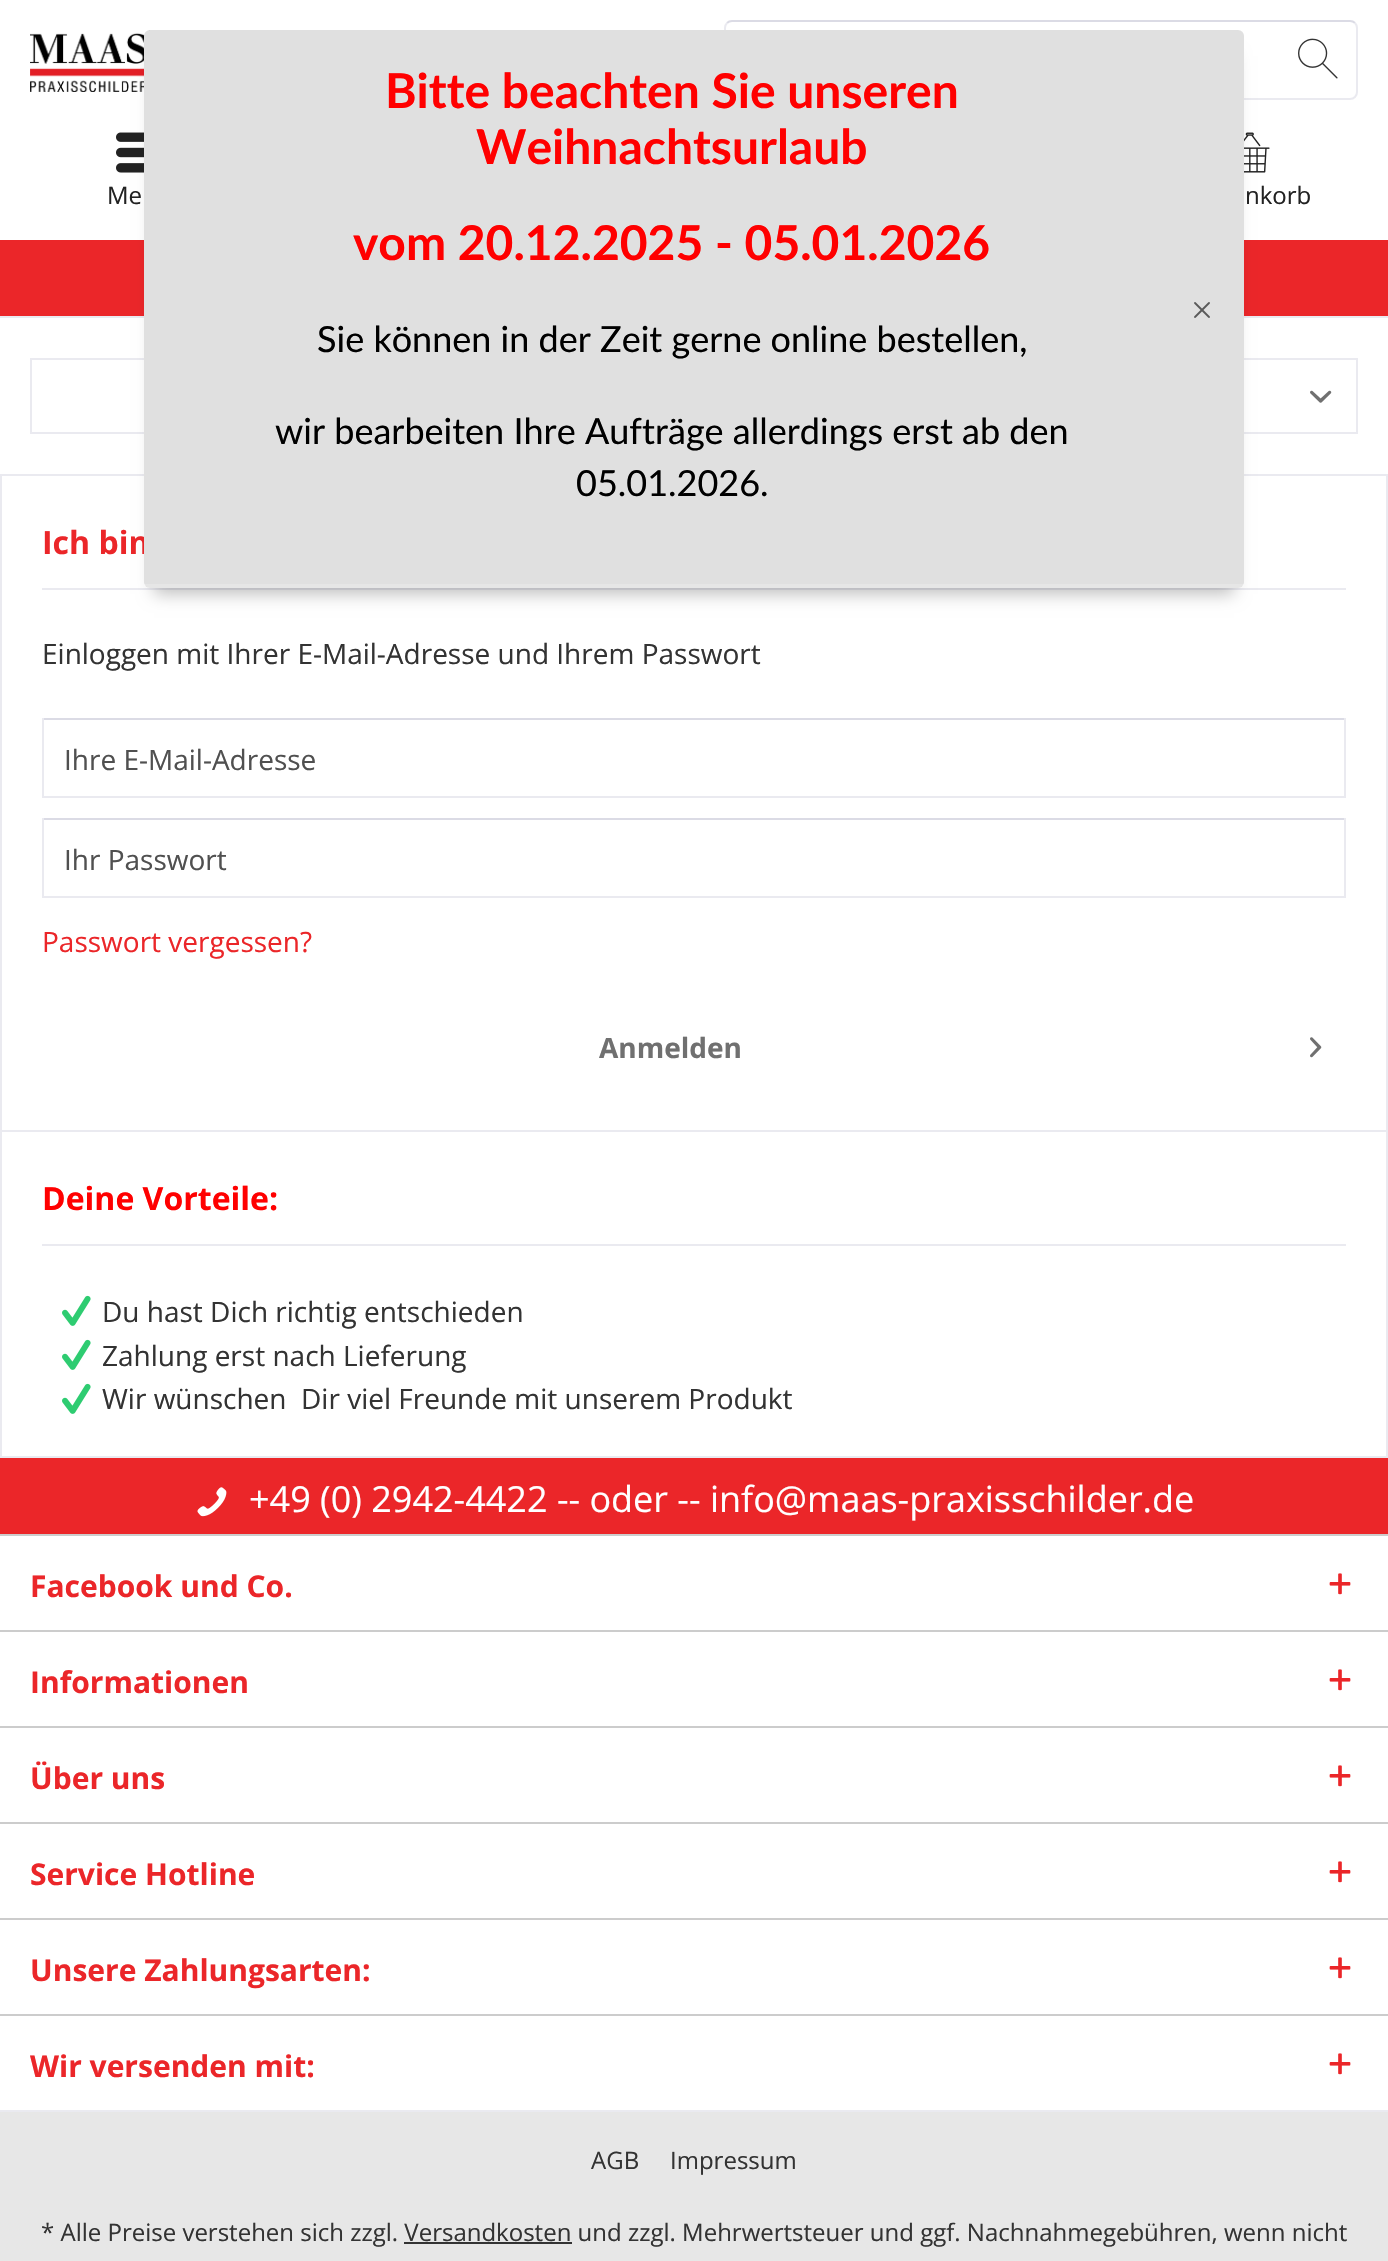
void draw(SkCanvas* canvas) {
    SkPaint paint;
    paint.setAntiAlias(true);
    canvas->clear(0xFFFFFFFF);
    canvas->drawImageRect(SkImages::DeferredFromEncodedData(SkData::MakeFromFileName("img2.png")), SkRect::MakeXYWH(30, 30, 120, 62), SkSamplingOptions());
    paint.setStyle(SkPaint::kStroke_Style);
    paint.setStrokeWidth(2);
    paint.setColor(0xFFDBDBE5);
    canvas->drawPath(SkPathBuilder().moveTo(727, 23).cubicTo(728.5f, 21.5f, 730, 21, 732, 21).lineTo(1350, 21).cubicTo(1352, 21, 1353.5f, 21.5f, 1355, 23).detach(), paint);
    paint.setColor(0xFFEAEAF0);
    canvas->drawPath(SkPathBuilder().moveTo(1355, 23).cubicTo(1356.5f, 24.5f, 1357, 26, 1357, 28).lineTo(1357, 92).cubicTo(1357, 94, 1356.5f, 95.5f, 1355, 97).cubicTo(1353.5f, 98.5f, 1352, 99, 1350, 99).lineTo(732, 99).cubicTo(730, 99, 728.5f, 98.5f, 727, 97).cubicTo(725.5f, 95.5f, 725, 94, 725, 92).lineTo(725, 28).cubicTo(725, 26, 725.5f, 24.5f, 727, 23).detach(), paint);
    paint.setStyle(SkPaint::kFill_Style);
    paint.setColor(0xFFEB2629);
    canvas->drawRect(SkRect::MakeXYWH(0, 240, 1388, 76), paint);
    paint.setColor(0xFFEAEAF0);
    canvas->drawRect(SkRect::MakeXYWH(0, 316, 1388, 2), paint);
    paint.setStyle(SkPaint::kStroke_Style);
    canvas->drawRect(SkRect::MakeXYWH(31, 359, 1326, 74), paint);
    canvas->drawRect(SkRect::MakeXYWH(1, 475, 1386, 656), paint);
    SkFont font1(fontMgr->matchFamilyStyle("Open Sans", SkFontStyle::Bold()), 32);
    font1.setSubpixel(true);
    paint.setStyle(SkPaint::kFill_Style);
    paint.setColor(0xFFEB2629);
    canvas->drawString("Ich bin", 42, 554, font1, paint);
    paint.setColor(0xFFE0E0E0);
    canvas->drawRoundRect(SkRect::MakeXYWH(144, 30, 1100, 558), 6, 6, paint);
    canvas->drawImageRect(SkImages::DeferredFromEncodedData(SkData::MakeFromFileName("img4.png")), SkRect::MakeXYWH(116, 132, 28, 41), SkSamplingOptions());
    canvas->drawImageRect(SkImages::DeferredFromEncodedData(SkData::MakeFromFileName("img5.png")), SkRect::MakeXYWH(1244, 132, 26, 41), SkSamplingOptions());
    paint.setColor(0xFFEAEAF0);
    canvas->drawRect(SkRect::MakeXYWH(42, 588, 1304, 2), paint);
    canvas->save();
    canvas->clipPath(SkPathBuilder(SkPathFillType::kEvenOdd).moveTo(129, 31).lineTo(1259, 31).lineTo(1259, 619).lineTo(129, 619).close().moveTo(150, 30).lineTo(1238, 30).cubicTo(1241.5f, 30, 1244, 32.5f, 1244, 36).lineTo(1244, 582).cubicTo(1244, 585.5f, 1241.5f, 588, 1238, 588).lineTo(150, 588).cubicTo(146.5f, 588, 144, 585.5f, 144, 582).lineTo(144, 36).cubicTo(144, 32.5f, 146.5f, 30, 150, 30).close().detach(), true);
    paint.setColor(0x40000000);
    paint.setMaskFilter(SkMaskFilter::MakeBlur(kNormal_SkBlurStyle, 8));
    canvas->drawRect(SkRect::MakeXYWH(154, 56, 1080, 538), paint);
    paint.setMaskFilter(nullptr);
    canvas->restore();
    SkFont font2(fontMgr->matchFamilyStyle("Lato", SkFontStyle::Bold()), 48);
    font2.setSubpixel(true);
    paint.setColor(0xFFFF0000);
    canvas->drawString("Bitte beachten Sie unseren", 385, 108, font2, paint);
    canvas->drawString("Weihnachtsurlaub", 476, 164, font2, paint);
    canvas->drawString("vom 20.12.2025 - 05.01.2026", 353, 260, font2, paint);
    SkFont font3(fontMgr->matchFamilyStyle("Lato", SkFontStyle::Normal()), 36);
    font3.setSubpixel(true);
    paint.setColor(0xFF000000);
    canvas->drawString("Sie können in der Zeit gerne online bestellen,", 317, 352, font3, paint);
    canvas->drawString("wir bearbeiten Ihre Aufträge allerdings erst ab den", 275, 444, font3, paint);
    canvas->drawString("05.01.2026.", 576, 496, font3, paint);
    canvas->drawImageRect(SkImages::DeferredFromEncodedData(SkData::MakeFromFileName("img1.png")), SkRect::MakeXYWH(1194, 302, 16, 16), SkSamplingOptions());
    paint.setColor(0x33FFFFFF);
    canvas->drawRect(SkRect::MakeXYWH(144, 584, 1100, 4), paint);
    canvas->drawImageRect(SkImages::DeferredFromEncodedData(SkData::MakeFromFileName("img3.png")), SkRect::MakeXYWH(1298, 38, 40, 41), SkSamplingOptions());
    SkFont font4(fontMgr->matchFamilyStyle("Open Sans", SkFontStyle::Normal()), 24);
    font4.setSubpixel(true);
    paint.setColor(0xFF222222);
    canvas->drawString("Me", 107, 204, font4, paint);
    canvas->drawString("nkorb", 1245, 204, font4, paint);
    canvas->drawImageRect(SkImages::DeferredFromEncodedData(SkData::MakeFromFileName("img6.png")), SkRect::MakeXYWH(1310, 390, 22, 13), SkSamplingOptions());
    SkFont font5(fontMgr->matchFamilyStyle("Open Sans", SkFontStyle::Normal()), 28);
    font5.setSubpixel(true);
    paint.setColor(0xFF333333);
    canvas->drawString("Einloggen mit Ihrer E-Mail-Adresse und Ihrem Passwort", 42, 664, font5, paint);
    paint.setColor(0xFFDBDBE5);
    canvas->drawRect(SkRect::MakeXYWH(42, 718, 1304, 2), paint);
    paint.setColor(0xFFEAEAF0);
    canvas->drawRect(SkRect::MakeXYWH(1344, 718, 2, 80), paint);
    canvas->drawRect(SkRect::MakeXYWH(42, 796, 1304, 2), paint);
    canvas->drawRect(SkRect::MakeXYWH(42, 718, 2, 80), paint);
    paint.setColor(0xFF505050);
    canvas->drawString("Ihre E-Mail-Adresse", 64, 770, font5, paint);
    paint.setColor(0xFFDBDBE5);
    canvas->drawRect(SkRect::MakeXYWH(42, 818, 1304, 2), paint);
    paint.setColor(0xFFEAEAF0);
    canvas->drawRect(SkRect::MakeXYWH(1344, 818, 2, 80), paint);
    canvas->drawRect(SkRect::MakeXYWH(42, 896, 1304, 2), paint);
    canvas->drawRect(SkRect::MakeXYWH(42, 818, 2, 80), paint);
    paint.setColor(0xFF505050);
    canvas->drawString("Ihr Passwort", 64, 870, font5, paint);
    paint.setColor(0xFFEB2629);
    canvas->drawString("Passwort vergessen?", 42, 952, font5, paint);
    SkFont font6(fontMgr->matchFamilyStyle("Open Sans", SkFontStyle::Bold()), 28);
    font6.setSubpixel(true);
    paint.setColor(0xFF707070);
    canvas->drawString("Anmelden", 599, 1058, font6, paint);
    canvas->drawImageRect(SkImages::DeferredFromEncodedData(SkData::MakeFromFileName("img7.png")), SkRect::MakeXYWH(1310, 1037, 12, 21), SkSamplingOptions());
    paint.setColor(0xFFEAEAF0);
    canvas->drawRect(SkRect::MakeXYWH(1386, 1132, 2, 326), paint);
    canvas->drawRect(SkRect::MakeXYWH(0, 1456, 1388, 2), paint);
    canvas->drawRect(SkRect::MakeXYWH(0, 1132, 2, 326), paint);
    canvas->drawRect(SkRect::MakeXYWH(42, 1244, 1304, 2), paint);
    paint.setColor(0xFFFF0000);
    canvas->drawString("Deine Vorteile:", 42, 1210, font1, paint);
    canvas->drawImageRect(SkImages::DeferredFromEncodedData(SkData::MakeFromFileName("img8.png")), SkRect::MakeXYWH(62, 1295, 29, 31), SkSamplingOptions());
    paint.setColor(0xFF333333);
    canvas->drawString("Du hast Dich richtig entschieden", 102, 1322, font5, paint);
    canvas->drawImageRect(SkImages::DeferredFromEncodedData(SkData::MakeFromFileName("img8.png")), SkRect::MakeXYWH(62, 1339, 29, 31), SkSamplingOptions());
    canvas->drawString("Zahlung erst nach Lieferung", 102, 1366, font5, paint);
    canvas->drawImageRect(SkImages::DeferredFromEncodedData(SkData::MakeFromFileName("img8.png")), SkRect::MakeXYWH(62, 1383, 29, 31), SkSamplingOptions());
    canvas->drawString("Wir wünschen  Dir viel Freunde mit unserem Produkt", 102, 1409, font5, paint);
    paint.setColor(0xFFEB2629);
    canvas->drawRect(SkRect::MakeXYWH(0, 1458, 1388, 76), paint);
    canvas->drawImageRect(SkImages::DeferredFromEncodedData(SkData::MakeFromFileName("img9.png")), SkRect::MakeXYWH(197, 1487, 30, 30), SkSamplingOptions());
    SkFont font7(fontMgr->matchFamilyStyle("Open Sans", SkFontStyle::Normal()), 36);
    font7.setSubpixel(true);
    paint.setColor(0xFFFFFFFF);
    canvas->drawString("+49 (0) 2942-4422 -- oder -- info@maas-praxisschilder.de", 249, 1512, font7, paint);
    paint.setColor(0xFFCCCCCC);
    canvas->drawRect(SkRect::MakeXYWH(0, 1534, 1388, 2), paint);
    SkFont font8(fontMgr->matchFamilyStyle("Open Sans", SkFontStyle::Bold()), 30);
    font8.setSubpixel(true);
    paint.setColor(0xFFEB2629);
    canvas->drawString("Facebook und Co.", 30, 1597, font8, paint);
    canvas->drawImageRect(SkImages::DeferredFromEncodedData(SkData::MakeFromFileName("img10.png")), SkRect::MakeXYWH(1329, 1573, 22, 22), SkSamplingOptions());
    paint.setColor(0xFFCCCCCC);
    canvas->drawRect(SkRect::MakeXYWH(0, 1630, 1388, 2), paint);
    paint.setColor(0xFFEB2629);
    canvas->drawString("Informationen", 30, 1693, font8, paint);
    canvas->drawImageRect(SkImages::DeferredFromEncodedData(SkData::MakeFromFileName("img10.png")), SkRect::MakeXYWH(1329, 1669, 22, 22), SkSamplingOptions());
    paint.setColor(0xFFCCCCCC);
    canvas->drawRect(SkRect::MakeXYWH(0, 1726, 1388, 2), paint);
    paint.setColor(0xFFEB2629);
    canvas->drawString("Über uns", 30, 1789, font8, paint);
    canvas->drawImageRect(SkImages::DeferredFromEncodedData(SkData::MakeFromFileName("img10.png")), SkRect::MakeXYWH(1329, 1765, 22, 22), SkSamplingOptions());
    paint.setColor(0xFFCCCCCC);
    canvas->drawRect(SkRect::MakeXYWH(0, 1822, 1388, 2), paint);
    paint.setColor(0xFFEB2629);
    canvas->drawString("Service Hotline", 30, 1885, font8, paint);
    canvas->drawImageRect(SkImages::DeferredFromEncodedData(SkData::MakeFromFileName("img10.png")), SkRect::MakeXYWH(1329, 1861, 22, 22), SkSamplingOptions());
    paint.setColor(0xFFCCCCCC);
    canvas->drawRect(SkRect::MakeXYWH(0, 1918, 1388, 2), paint);
    paint.setColor(0xFFEB2629);
    canvas->drawString("Unsere Zahlungsarten:", 30, 1981, font8, paint);
    canvas->drawImageRect(SkImages::DeferredFromEncodedData(SkData::MakeFromFileName("img10.png")), SkRect::MakeXYWH(1329, 1957, 22, 22), SkSamplingOptions());
    paint.setColor(0xFFCCCCCC);
    canvas->drawRect(SkRect::MakeXYWH(0, 2014, 1388, 2), paint);
    paint.setColor(0xFFEB2629);
    canvas->drawString("Wir versenden mit:", 30, 2077, font8, paint);
    canvas->drawImageRect(SkImages::DeferredFromEncodedData(SkData::MakeFromFileName("img10.png")), SkRect::MakeXYWH(1329, 2053, 22, 22), SkSamplingOptions());
    paint.setColor(0xFFE7E7E7);
    canvas->drawRect(SkRect::MakeXYWH(0, 2112, 1388, 149), paint);
    paint.setColor(0xFFEAEAF0);
    canvas->drawRect(SkRect::MakeXYWH(0, 2110, 1388, 2), paint);
    paint.setColor(0xFF333333);
    canvas->drawString("AGB", 591, 2169, font4, paint);
    canvas->drawString("Impressum", 670, 2169, font4, paint);
    canvas->drawString("* Alle Preise verstehen sich zzgl. Versandkosten und zzgl. Mehrwertsteuer und ggf. Nachnahmegebühren, wenn nicht", 41, 2241, font4, paint);
    canvas->drawRect(SkRect::MakeXYWH(404, 2242, 168, 2), paint);
}
